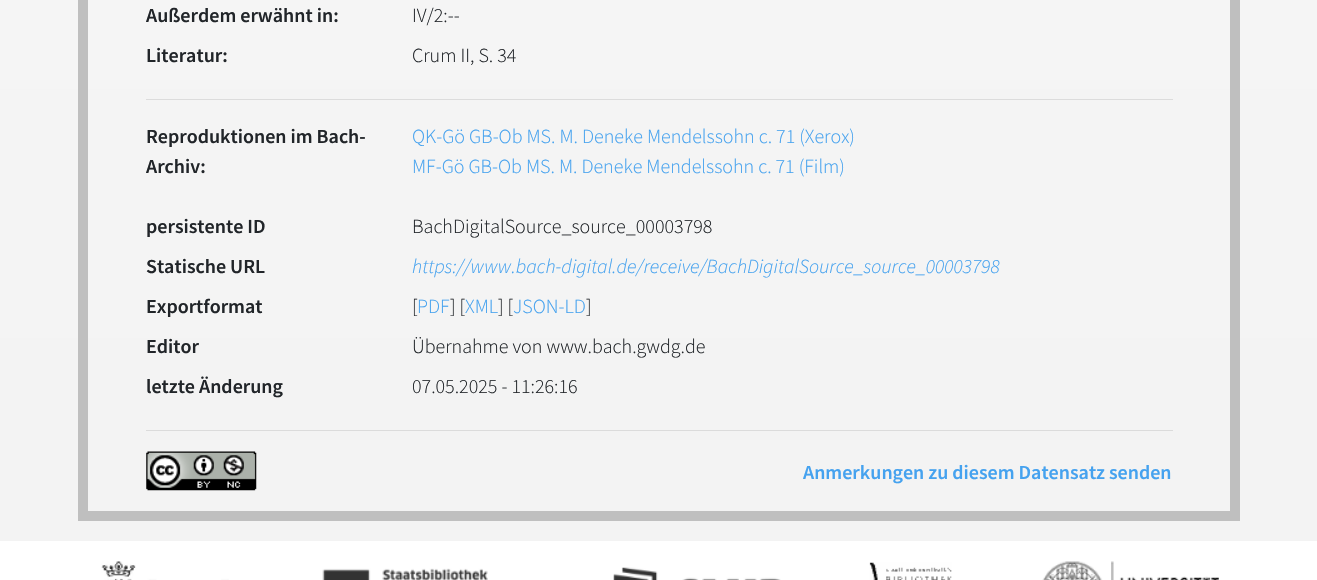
void draw(SkCanvas* canvas) {
    SkPaint paint;
    paint.setAntiAlias(true);
    canvas->clear(0xFFFFFFFF);
    {
        const SkColor colors[] = {0xFFFAFAFA, 0xFFF2F2F2};
        const float stops[] = {0, 1};
        const SkPoint ends[] = {{659, -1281}, {659, 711}};
        paint.setShader(SkGradientShader::MakeLinear(ends, colors, stops, 2, SkTileMode::kClamp));
        paint.setAlpha(255);
    }
    canvas->drawRect(SkRect::MakeXYWH(0, 0, 1317, 541), paint);
    paint.setStyle(SkPaint::kStroke_Style);
    paint.setStrokeWidth(10);
    paint.setShader(nullptr);
    paint.setColor(0xFFBFBFBF);
    canvas->drawRect(SkRect::MakeXYWH(83, -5, 1152, 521), paint);
    SkFont font1(fontMgr->matchFamilyStyle("Source Sans Pro", SkFontStyle(600, SkFontStyle::kNormal_Width, SkFontStyle::kUpright_Slant)), 20);
    font1.setSubpixel(true);
    paint.setStyle(SkPaint::kFill_Style);
    paint.setColor(0xFF212529);
    canvas->drawString("Außerdem erwähnt in:", 146, 22, font1, paint);
    SkFont font2(fontMgr->matchFamilyStyle("Source Sans Pro", SkFontStyle(300, SkFontStyle::kNormal_Width, SkFontStyle::kUpright_Slant)), 20);
    font2.setSubpixel(true);
    canvas->drawString("IV/2:--", 412, 22, font2, paint);
    canvas->drawString("Literatur:", 146, 62, font1, paint);
    canvas->drawString("Crum II, S. 34", 412, 62, font2, paint);
    paint.setColor(0xFFDCDCDC);
    canvas->drawRect(SkRect::MakeXYWH(146, 99, 1027, 1), paint);
    paint.setColor(0xFF212529);
    canvas->drawString("Reproduktionen im Bach-", 146, 143, font1, paint);
    canvas->drawString("Archiv:", 146, 173, font1, paint);
    paint.setColor(0xFF45A2EF);
    canvas->drawString("QK-Gö GB-Ob MS. M. Deneke Mendelssohn c. 71 (Xerox)", 412, 143, font2, paint);
    canvas->drawString("MF-Gö GB-Ob MS. M. Deneke Mendelssohn c. 71 (Film)", 412, 173, font2, paint);
    paint.setColor(0xFF212529);
    canvas->drawString("persistente ID", 146, 233, font1, paint);
    canvas->drawString("BachDigitalSource_source_00003798", 412, 233, font2, paint);
    canvas->drawString("Statische URL", 146, 273, font1, paint);
    SkFont font3(fontMgr->matchFamilyStyle("Source Sans Pro", SkFontStyle(300, SkFontStyle::kNormal_Width, SkFontStyle::kItalic_Slant)), 20);
    font3.setSubpixel(true);
    paint.setColor(0xFF45A2EF);
    canvas->drawString("https://www.bach-digital.de/receive/BachDigitalSource_source_00003798", 412, 273, font3, paint);
    paint.setColor(0xFF212529);
    canvas->drawString("Exportformat", 146, 313, font1, paint);
    canvas->drawString("[", 412, 313, font2, paint);
    paint.setColor(0xFF45A2EF);
    canvas->drawString("PDF", 417, 313, font2, paint);
    paint.setColor(0xFF212529);
    canvas->drawString("] [", 450, 313, font2, paint);
    paint.setColor(0xFF45A2EF);
    canvas->drawString("XML", 465, 313, font2, paint);
    paint.setColor(0xFF212529);
    canvas->drawString("] [", 498, 313, font2, paint);
    paint.setColor(0xFF45A2EF);
    canvas->drawString("JSON-LD", 513, 313, font2, paint);
    paint.setColor(0xFF212529);
    canvas->drawString("]", 586, 313, font2, paint);
    canvas->drawString("Editor", 146, 353, font1, paint);
    canvas->drawString("Übernahme von www.bach.gwdg.de", 412, 353, font2, paint);
    canvas->drawString("letzte Änderung", 146, 393, font1, paint);
    canvas->drawString("07.05.2025 - 11:26:16", 412, 393, font2, paint);
    paint.setColor(0xFFDBDBDB);
    canvas->drawRect(SkRect::MakeXYWH(146, 430, 1027, 1), paint);
    canvas->drawImageRect(SkImages::DeferredFromEncodedData(SkData::MakeFromFileName("img1.png")), SkRect::MakeXYWH(146, 451, 111, 40), SkSamplingOptions());
    paint.setColor(0xFF45A2EF);
    canvas->drawString("Anmerkungen zu diesem Datensatz senden", 803, 479, font1, paint);
    canvas->drawImageRect(SkImages::DeferredFromEncodedData(SkData::MakeFromFileName("img2.png")), SkRect::MakeXYWH(101, 561, 128, 19), SkSamplingOptions());
    canvas->drawImageRect(SkImages::DeferredFromEncodedData(SkData::MakeFromFileName("img3.png")), SkRect::MakeXYWH(322, 568, 166, 12), SkSamplingOptions());
    canvas->drawImageRect(SkImages::DeferredFromEncodedData(SkData::MakeFromFileName("img4.png")), SkRect::MakeXYWH(613, 567, 168, 13), SkSamplingOptions());
    canvas->drawImageRect(SkImages::DeferredFromEncodedData(SkData::MakeFromFileName("img5.png")), SkRect::MakeXYWH(869, 562, 83, 18), SkSamplingOptions());
    canvas->drawImageRect(SkImages::DeferredFromEncodedData(SkData::MakeFromFileName("img6.png")), SkRect::MakeXYWH(1042, 561, 177, 19), SkSamplingOptions());
}
